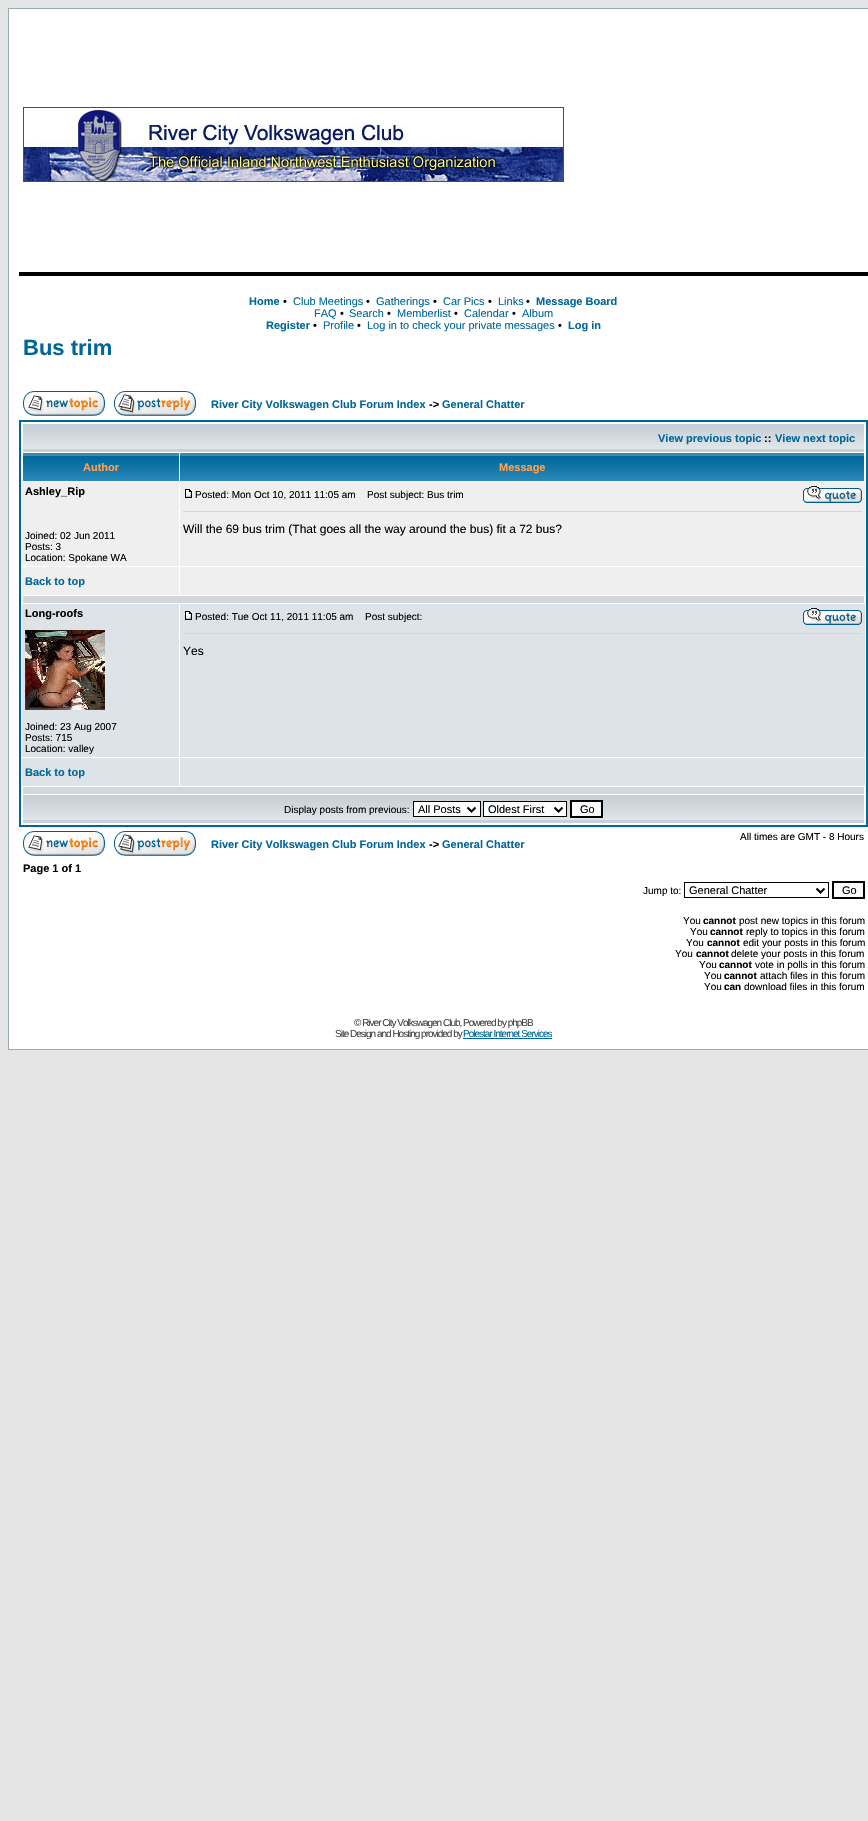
void draw(SkCanvas* canvas) {
    SkPaint paint;
    paint.setAntiAlias(true);
    auto spacedText = [&](const char* s, float x, float y, const SkFont& font, const SkPaint& ink, float letter, float word) {
        std::vector<SkGlyphID> glyphs(font.countText(s, strlen(s), SkTextEncoding::kUTF8));
        std::vector<float> xs(glyphs.size());
        font.textToGlyphs(s, strlen(s), SkTextEncoding::kUTF8, glyphs);
        font.getXPos(glyphs, xs, x);
        float extra = 0;
        for (size_t i = 0; i < glyphs.size(); i++) {
            xs[i] += extra;
            extra += letter + word * (glyphs[i] == font.unicharToGlyph(' '));
        }
        canvas->drawTextBlob(SkTextBlob::MakeFromPosHGlyphs(glyphs, xs, y, font), 0, 0, ink);
    };
    canvas->clear(0xFFE5E5E5);
    paint.setColor(0xFFFFFFFF);
    canvas->drawRect(SkRect::MakeXYWH(8.5f, 8.5f, 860, 1041), paint);
    paint.setStyle(SkPaint::kStroke_Style);
    paint.setStrokeWidth(1);
    paint.setColor(0xFF98AAB1);
    canvas->drawRect(SkRect::MakeXYWH(8.5f, 8.5f, 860, 1041), paint);
    paint.setColor(0xFF006699);
    canvas->drawRect(SkRect::MakeXYWH(23.5f, 107.5f, 540, 74), paint);
    canvas->drawImageRect(SkImages::DeferredFromEncodedData(SkData::MakeFromFileName("img1.png")), SkRect::MakeXYWH(24, 108, 539, 73), SkSamplingOptions());
    paint.setStyle(SkPaint::kFill_Style);
    paint.setColor(0xFF000000);
    canvas->drawRect(SkRect::MakeXYWH(19, 272, 849, 4), paint);
    SkFont font1(fontMgr->matchFamilyStyle("Liberation Sans", SkFontStyle::Bold()), 11);
    font1.setSubpixel(true);
    paint.setColor(0xFF006699);
    canvas->drawString("Home", 249, 305, font1, paint);
    SkFont font2(fontMgr->matchFamilyStyle("Liberation Sans", SkFontStyle::Normal()), 11);
    font2.setSubpixel(true);
    paint.setColor(0xFF000000);
    canvas->drawString("•", 283, 305, font2, paint);
    paint.setColor(0xFF006699);
    canvas->drawString("Club Meetings", 293, 305, font2, paint);
    paint.setColor(0xFF000000);
    canvas->drawString("•", 366, 305, font2, paint);
    paint.setColor(0xFF006699);
    canvas->drawString("Gatherings", 376, 305, font2, paint);
    paint.setColor(0xFF000000);
    canvas->drawString("•", 433, 305, font2, paint);
    paint.setColor(0xFF006699);
    canvas->drawString("Car Pics", 443, 305, font2, paint);
    paint.setColor(0xFF000000);
    canvas->drawString("•", 488, 305, font2, paint);
    paint.setColor(0xFF006699);
    canvas->drawString("Links", 498, 305, font2, paint);
    paint.setColor(0xFF000000);
    canvas->drawString("•", 526, 305, font2, paint);
    paint.setColor(0xFF006699);
    canvas->drawString("Message Board", 536, 305, font1, paint);
    canvas->drawString("FAQ", 314, 317, font2, paint);
    paint.setColor(0xFF000000);
    canvas->drawString("•", 340, 317, font2, paint);
    paint.setColor(0xFF006699);
    canvas->drawString("Search", 349, 317, font2, paint);
    paint.setColor(0xFF000000);
    canvas->drawString("•", 387, 317, font2, paint);
    paint.setColor(0xFF006699);
    canvas->drawString("Memberlist", 397, 317, font2, paint);
    paint.setColor(0xFF000000);
    canvas->drawString("•", 454, 317, font2, paint);
    paint.setColor(0xFF006699);
    canvas->drawString("Calendar", 464, 317, font2, paint);
    paint.setColor(0xFF000000);
    canvas->drawString("•", 512, 317, font2, paint);
    paint.setColor(0xFF006699);
    canvas->drawString("Album", 522, 317, font2, paint);
    canvas->drawString("Register", 266, 329, font1, paint);
    paint.setColor(0xFF000000);
    canvas->drawString("•", 313, 329, font2, paint);
    paint.setColor(0xFF006699);
    canvas->drawString("Profile", 323, 329, font2, paint);
    paint.setColor(0xFF000000);
    canvas->drawString("•", 357, 329, font2, paint);
    paint.setColor(0xFF006699);
    canvas->drawString("Log in to check your private messages", 367, 329, font2, paint);
    paint.setColor(0xFF000000);
    canvas->drawString("•", 558, 329, font2, paint);
    paint.setColor(0xFF006699);
    canvas->drawString("Log in", 568, 329, font1, paint);
    SkFont font3(fontMgr->matchFamilyStyle("Liberation Sans", SkFontStyle::Bold()), 22);
    font3.setSubpixel(true);
    canvas->drawString("Bus trim", 23, 355, font3, paint);
    canvas->drawImageRect(SkImages::DeferredFromEncodedData(SkData::MakeFromFileName("img2.png")), SkRect::MakeXYWH(23, 391, 82, 25), SkSamplingOptions());
    canvas->drawImageRect(SkImages::DeferredFromEncodedData(SkData::MakeFromFileName("img3.png")), SkRect::MakeXYWH(114, 391, 82, 25), SkSamplingOptions());
    canvas->drawString("River City Volkswagen Club Forum Index", 211, 408, font1, paint);
    paint.setColor(0xFF000000);
    canvas->drawString("->", 429, 408, font1, paint);
    paint.setColor(0xFF006699);
    canvas->drawString("General Chatter", 442, 408, font1, paint);
    paint.setStyle(SkPaint::kStroke_Style);
    paint.setStrokeWidth(2);
    canvas->drawRect(SkRect::MakeXYWH(20, 421, 847, 405), paint);
    canvas->drawImageRect(SkImages::DeferredFromEncodedData(SkData::MakeFromFileName("img4.png")), SkRect::MakeXYWH(23, 424, 841, 28), SkSamplingOptions());
    paint.setStyle(SkPaint::kFill_Style);
    canvas->drawString("View previous topic", 658, 442, font1, paint);
    paint.setColor(0xFF000000);
    canvas->drawString("::", 764, 442, font1, paint);
    paint.setColor(0xFF006699);
    canvas->drawString("View next topic", 775, 442, font1, paint);
    canvas->drawImageRect(SkImages::DeferredFromEncodedData(SkData::MakeFromFileName("img5.png")), SkRect::MakeXYWH(23, 453, 156, 28), SkSamplingOptions());
    paint.setColor(0xFFFFA34F);
    canvas->drawString("Author", 83, 471, font1, paint);
    canvas->drawImageRect(SkImages::DeferredFromEncodedData(SkData::MakeFromFileName("img6.png")), SkRect::MakeXYWH(180, 453, 684, 28), SkSamplingOptions());
    canvas->drawString("Message", 499, 471, font1, paint);
    paint.setColor(0xFFEFEFEF);
    canvas->drawRect(SkRect::MakeXYWH(22, 482, 157, 84), paint);
    paint.setColor(0xFF000000);
    canvas->drawString("Ashley_Rip", 25, 495, font1, paint);
    SkFont font4(fontMgr->matchFamilyStyle("Liberation Sans", SkFontStyle::Normal()), 10);
    font4.setSubpixel(true);
    canvas->drawString("Joined: 02 Jun 2011", 25, 539, font4, paint);
    canvas->drawString("Posts: 3", 25, 550, font4, paint);
    canvas->drawString("Location: Spokane WA", 25, 561, font4, paint);
    paint.setColor(0xFFEFEFEF);
    canvas->drawRect(SkRect::MakeXYWH(180, 482, 685, 84), paint);
    canvas->drawImageRect(SkImages::DeferredFromEncodedData(SkData::MakeFromFileName("img7.png")), SkRect::MakeXYWH(185, 489, 7, 9), SkSamplingOptions());
    paint.setColor(0xFF000000);
    canvas->drawString("Posted: Mon Oct 10, 2011 11:05 am", 195, 498, font4, paint);
    canvas->drawString("Post subject: Bus trim", 367, 498, font4, paint);
    canvas->drawImageRect(SkImages::DeferredFromEncodedData(SkData::MakeFromFileName("img8.png")), SkRect::MakeXYWH(803, 486, 59, 17), SkSamplingOptions());
    paint.setColor(0xFFD1D7DC);
    canvas->drawRect(SkRect::MakeXYWH(183, 511, 679, 1), paint);
    SkFont font5(fontMgr->matchFamilyStyle("Liberation Sans", SkFontStyle::Normal()), 12);
    font5.setSubpixel(true);
    paint.setColor(0xFF000000);
    canvas->drawString("Will the 69 bus trim (That goes all the way around the bus) fit a 72 bus?", 183, 533, font5, paint);
    paint.setColor(0xFFEFEFEF);
    canvas->drawRect(SkRect::MakeXYWH(22, 567, 157, 28), paint);
    paint.setColor(0xFF006699);
    canvas->drawString("Back to top", 25, 585, font1, paint);
    paint.setColor(0xFFEFEFEF);
    canvas->drawRect(SkRect::MakeXYWH(180, 567, 685, 28), paint);
    paint.setColor(0xFFD1D7DC);
    canvas->drawRect(SkRect::MakeXYWH(23, 596, 841, 7), paint);
    paint.setColor(0xFFDEE3E7);
    canvas->drawRect(SkRect::MakeXYWH(22, 604, 157, 153), paint);
    paint.setColor(0xFF000000);
    canvas->drawString("Long-roofs", 25, 617, font1, paint);
    canvas->drawImageRect(SkImages::DeferredFromEncodedData(SkData::MakeFromFileName("img9.png")), SkRect::MakeXYWH(25, 630, 80, 80), SkSamplingOptions());
    canvas->drawString("Joined: 23 Aug 2007", 25, 730, font4, paint);
    canvas->drawString("Posts: 715", 25, 741, font4, paint);
    canvas->drawString("Location: valley", 25, 752, font4, paint);
    paint.setColor(0xFFDEE3E7);
    canvas->drawRect(SkRect::MakeXYWH(180, 604, 685, 153), paint);
    canvas->drawImageRect(SkImages::DeferredFromEncodedData(SkData::MakeFromFileName("img10.png")), SkRect::MakeXYWH(185, 611, 7, 9), SkSamplingOptions());
    paint.setColor(0xFF000000);
    canvas->drawString("Posted: Tue Oct 11, 2011 11:05 am", 195, 620, font4, paint);
    canvas->drawString("Post subject:", 365, 620, font4, paint);
    canvas->drawImageRect(SkImages::DeferredFromEncodedData(SkData::MakeFromFileName("img11.png")), SkRect::MakeXYWH(803, 608, 59, 17), SkSamplingOptions());
    paint.setColor(0xFFD1D7DC);
    canvas->drawRect(SkRect::MakeXYWH(183, 633, 679, 1), paint);
    paint.setColor(0xFF000000);
    canvas->drawString("Yes", 183, 655, font5, paint);
    paint.setColor(0xFFDEE3E7);
    canvas->drawRect(SkRect::MakeXYWH(22, 758, 157, 28), paint);
    paint.setColor(0xFF006699);
    canvas->drawString("Back to top", 25, 776, font1, paint);
    paint.setColor(0xFFDEE3E7);
    canvas->drawRect(SkRect::MakeXYWH(180, 758, 685, 28), paint);
    paint.setColor(0xFFD1D7DC);
    canvas->drawRect(SkRect::MakeXYWH(23, 787, 841, 7), paint);
    canvas->drawImageRect(SkImages::DeferredFromEncodedData(SkData::MakeFromFileName("img4.png")), SkRect::MakeXYWH(23, 795, 841, 28), SkSamplingOptions());
    paint.setColor(0xFF000000);
    canvas->drawString("Display posts from previous:", 284, 813, font4, paint);
    paint.setColor(0xFFFFFFFF);
    canvas->drawRect(SkRect::MakeXYWH(413.5f, 801.5f, 67, 15), paint);
    paint.setStyle(SkPaint::kStroke_Style);
    paint.setStrokeWidth(1);
    paint.setColor(0xFF000000);
    canvas->drawRect(SkRect::MakeXYWH(413.5f, 801.5f, 67, 15), paint);
    paint.setStrokeWidth(2);
    canvas->drawPath(SkPathBuilder().moveTo(467.5f, 807.5f).lineTo(471.5f, 811.5f).lineTo(475.5f, 807.5f).detach(), paint);
    paint.setStyle(SkPaint::kFill_Style);
    canvas->drawString("All Posts", 418, 813, font2, paint);
    paint.setColor(0xFFFFFFFF);
    canvas->drawRect(SkRect::MakeXYWH(483.5f, 801.5f, 83, 15), paint);
    paint.setStyle(SkPaint::kStroke_Style);
    paint.setStrokeWidth(1);
    paint.setColor(0xFF000000);
    canvas->drawRect(SkRect::MakeXYWH(483.5f, 801.5f, 83, 15), paint);
    paint.setStrokeWidth(2);
    canvas->drawPath(SkPathBuilder().moveTo(554.5f, 807.5f).lineTo(558.5f, 811.5f).lineTo(562.5f, 807.5f).detach(), paint);
    paint.setStyle(SkPaint::kFill_Style);
    canvas->drawString("Oldest First", 488, 813, font2, paint);
    paint.setColor(0xFFFAFAFA);
    canvas->drawRect(SkRect::MakeXYWH(571, 801, 31, 16), paint);
    paint.setStyle(SkPaint::kStroke_Style);
    paint.setColor(0xFF000000);
    canvas->drawRect(SkRect::MakeXYWH(571, 801, 31, 16), paint);
    paint.setStyle(SkPaint::kFill_Style);
    canvas->drawString("Go", 580, 813, font2, paint);
    canvas->drawImageRect(SkImages::DeferredFromEncodedData(SkData::MakeFromFileName("img2.png")), SkRect::MakeXYWH(23, 831, 82, 25), SkSamplingOptions());
    canvas->drawImageRect(SkImages::DeferredFromEncodedData(SkData::MakeFromFileName("img3.png")), SkRect::MakeXYWH(114, 831, 82, 25), SkSamplingOptions());
    canvas->drawString("All times are GMT - 8 Hours", 740, 840, font4, paint);
    paint.setColor(0xFF006699);
    canvas->drawString("River City Volkswagen Club Forum Index", 211, 848, font1, paint);
    paint.setColor(0xFF000000);
    canvas->drawString("->", 429, 848, font1, paint);
    paint.setColor(0xFF006699);
    canvas->drawString("General Chatter", 442, 848, font1, paint);
    paint.setColor(0xFF000000);
    canvas->drawString("Page 1 of 1", 23, 872, font1, paint);
    canvas->drawString("Jump to:", 643, 894, font4, paint);
    paint.setStyle(SkPaint::kStroke_Style);
    paint.setStrokeWidth(1);
    canvas->drawRect(SkRect::MakeXYWH(684.5f, 882.5f, 144, 15), paint);
    paint.setStrokeWidth(2);
    canvas->drawPath(SkPathBuilder().moveTo(816.5f, 888.5f).lineTo(820.5f, 892.5f).lineTo(824.5f, 888.5f).detach(), paint);
    paint.setStyle(SkPaint::kFill_Style);
    canvas->drawString("General Chatter", 689, 894, font2, paint);
    paint.setColor(0xFFFAFAFA);
    canvas->drawRect(SkRect::MakeXYWH(833, 882, 31, 16), paint);
    paint.setStyle(SkPaint::kStroke_Style);
    paint.setColor(0xFF000000);
    canvas->drawRect(SkRect::MakeXYWH(833, 882, 31, 16), paint);
    paint.setStyle(SkPaint::kFill_Style);
    canvas->drawString("Go", 842, 894, font2, paint);
    canvas->drawString("You", 683, 924, font4, paint);
    SkFont font6(fontMgr->matchFamilyStyle("Liberation Sans", SkFontStyle::Bold()), 10);
    font6.setSubpixel(true);
    canvas->drawString("cannot", 703, 924, font6, paint);
    canvas->drawString("post new topics in this forum", 739, 924, font4, paint);
    canvas->drawString("You", 690, 935, font4, paint);
    canvas->drawString("cannot", 710, 935, font6, paint);
    canvas->drawString("reply to topics in this forum", 746, 935, font4, paint);
    canvas->drawString("You", 686, 946, font4, paint);
    canvas->drawString("cannot", 707, 946, font6, paint);
    canvas->drawString("edit your posts in this forum", 743, 946, font4, paint);
    canvas->drawString("You", 675, 957, font4, paint);
    canvas->drawString("cannot", 696, 957, font6, paint);
    canvas->drawString("delete your posts in this forum", 731, 957, font4, paint);
    canvas->drawString("You", 699, 968, font4, paint);
    canvas->drawString("cannot", 719, 968, font6, paint);
    canvas->drawString("vote in polls in this forum", 755, 968, font4, paint);
    canvas->drawString("You", 704, 979, font4, paint);
    canvas->drawString("cannot", 724, 979, font6, paint);
    canvas->drawString("attach files in this forum", 760, 979, font4, paint);
    canvas->drawString("You", 704, 990, font4, paint);
    canvas->drawString("can", 724, 990, font6, paint);
    canvas->drawString("download files in this forum", 744, 990, font4, paint);
    paint.setColor(0xFF444444);
    spacedText("© River City Volkswagen Club, Powered by phpBB", 354, 1026, font4, paint, -1, 0);
    spacedText("Site Design and Hosting provided by", 335, 1037, font4, paint, -1, 0);
    paint.setColor(0xFF006699);
    canvas->drawRect(SkRect::MakeXYWH(463, 1038, 89, 1), paint);
    spacedText("Polestar Internet Services", 463, 1037, font4, paint, -1, 0);
}
